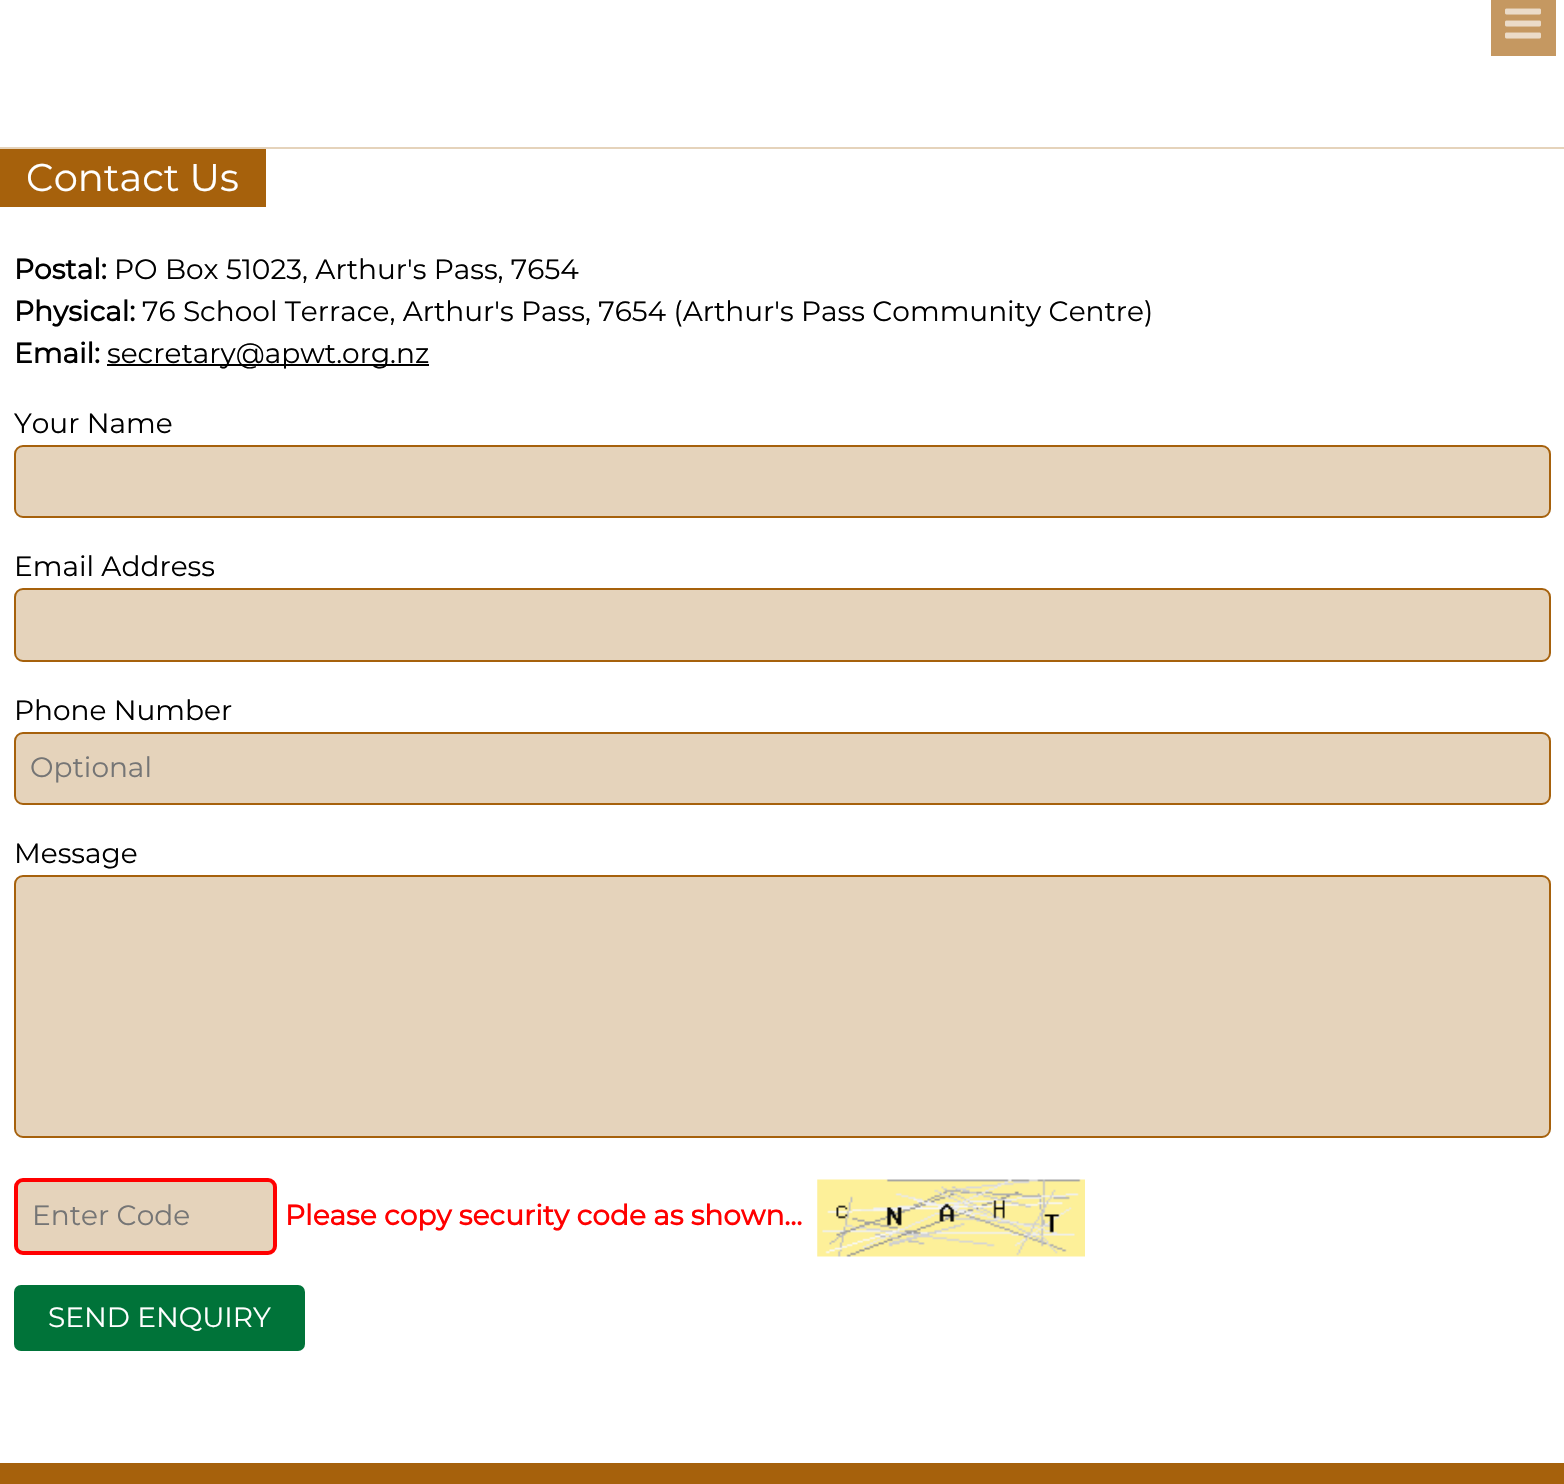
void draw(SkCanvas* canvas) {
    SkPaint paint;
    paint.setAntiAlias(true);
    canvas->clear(0xFFE5D3BB);
    paint.setColor(0xFFFFFFFF);
    canvas->drawRect(SkRect::MakeXYWH(0, 0, 1564, 147), paint);
    paint.setColor(0xFFC59861);
    canvas->drawRect(SkRect::MakeXYWH(1491, 0, 65, 56), paint);
    canvas->drawImageRect(SkImages::DeferredFromEncodedData(SkData::MakeFromFileName("img1.png")), SkRect::MakeXYWH(1505, 8, 36, 31), SkSamplingOptions());
    paint.setColor(0xFFFFFFFF);
    canvas->drawRect(SkRect::MakeXYWH(0, 149, 1564, 1314), paint);
    paint.setColor(0xFFA6610C);
    canvas->drawRect(SkRect::MakeXYWH(0, 149, 266, 58), paint);
    SkFont font1(fontMgr->matchFamilyStyle("Montserrat", SkFontStyle(100, SkFontStyle::kNormal_Width, SkFontStyle::kUpright_Slant)), 38.5f);
    font1.setSubpixel(true);
    paint.setColor(0xFFFFFFFF);
    canvas->drawString("Contact Us", 26, 191, font1, paint);
    SkFont font2(fontMgr->matchFamilyStyle("Montserrat", SkFontStyle::Bold()), 28);
    font2.setSubpixel(true);
    paint.setColor(0xFF000000);
    canvas->drawString("Postal:", 14, 279, font2, paint);
    SkFont font3(fontMgr->matchFamilyStyle("Montserrat", SkFontStyle(100, SkFontStyle::kNormal_Width, SkFontStyle::kUpright_Slant)), 28);
    font3.setSubpixel(true);
    canvas->drawString("PO Box 51023, Arthur's Pass, 7654", 114, 279, font3, paint);
    canvas->drawString("Physical:", 14, 321, font2, paint);
    canvas->drawString("76 School Terrace, Arthur's Pass, 7654 (Arthur's Pass Community Centre)", 142, 321, font3, paint);
    canvas->drawString("Email:", 14, 363, font2, paint);
    canvas->drawRect(SkRect::MakeXYWH(107, 364, 322, 2), paint);
    canvas->drawString("secretary@apwt.org.nz", 107, 363, font3, paint);
    canvas->drawString("Your Name", 14, 433, font3, paint);
    paint.setColor(0xFFE5D3BB);
    canvas->drawRoundRect(SkRect::MakeXYWH(15, 446, 1535, 71), 8, 8, paint);
    paint.setStyle(SkPaint::kStroke_Style);
    paint.setStrokeWidth(2);
    paint.setColor(0xFFA6610C);
    canvas->drawRoundRect(SkRect::MakeXYWH(15, 446, 1535, 71), 8, 8, paint);
    paint.setStyle(SkPaint::kFill_Style);
    paint.setColor(0xFF000000);
    canvas->drawString("Email Address", 14, 576, font3, paint);
    paint.setColor(0xFFE5D3BB);
    canvas->drawRoundRect(SkRect::MakeXYWH(15, 589, 1535, 72), 8, 8, paint);
    paint.setStyle(SkPaint::kStroke_Style);
    paint.setColor(0xFFA6610C);
    canvas->drawRoundRect(SkRect::MakeXYWH(15, 589, 1535, 72), 8, 8, paint);
    paint.setStyle(SkPaint::kFill_Style);
    paint.setColor(0xFF000000);
    canvas->drawString("Phone Number", 14, 720, font3, paint);
    paint.setColor(0xFFE5D3BB);
    canvas->drawRoundRect(SkRect::MakeXYWH(15, 733, 1535, 71), 8, 8, paint);
    paint.setStyle(SkPaint::kStroke_Style);
    paint.setColor(0xFFA6610C);
    canvas->drawRoundRect(SkRect::MakeXYWH(15, 733, 1535, 71), 8, 8, paint);
    paint.setStyle(SkPaint::kFill_Style);
    paint.setColor(0xFF757575);
    canvas->drawString("Optional", 30, 777, font3, paint);
    paint.setColor(0xFF000000);
    canvas->drawString("Message", 14, 863, font3, paint);
    paint.setColor(0xFFE5D3BB);
    canvas->drawRoundRect(SkRect::MakeXYWH(15, 876, 1535, 261), 8, 8, paint);
    paint.setStyle(SkPaint::kStroke_Style);
    paint.setColor(0xFFA6610C);
    canvas->drawRoundRect(SkRect::MakeXYWH(15, 876, 1535, 261), 8, 8, paint);
    paint.setStyle(SkPaint::kFill_Style);
    paint.setColor(0xFFE5D3BB);
    canvas->drawRoundRect(SkRect::MakeXYWH(16, 1180, 259, 73), 7, 7, paint);
    paint.setStyle(SkPaint::kStroke_Style);
    paint.setStrokeWidth(4);
    paint.setColor(0xFFFF0000);
    canvas->drawRoundRect(SkRect::MakeXYWH(16, 1180, 259, 73), 7, 7, paint);
    paint.setStyle(SkPaint::kFill_Style);
    paint.setColor(0xFF757575);
    canvas->drawString("Enter Code", 32, 1225, font3, paint);
    paint.setColor(0xFFFF0000);
    canvas->drawString("Please copy security code as shown...", 285, 1225, font2, paint);
    canvas->drawImageRect(SkImages::DeferredFromEncodedData(SkData::MakeFromFileName("img2.png")), SkRect::MakeXYWH(817, 1179, 268, 78), SkSamplingOptions());
    paint.setColor(0xFF007339);
    canvas->drawRoundRect(SkRect::MakeXYWH(14, 1285, 291, 66), 7, 7, paint);
    paint.setColor(0xFFFFFFFF);
    canvas->drawString("SEND ENQUIRY", 48, 1327, font3, paint);
    paint.setColor(0xFFA6610C);
    canvas->drawRect(SkRect::MakeXYWH(0, 1463, 1564, 21), paint);
}
